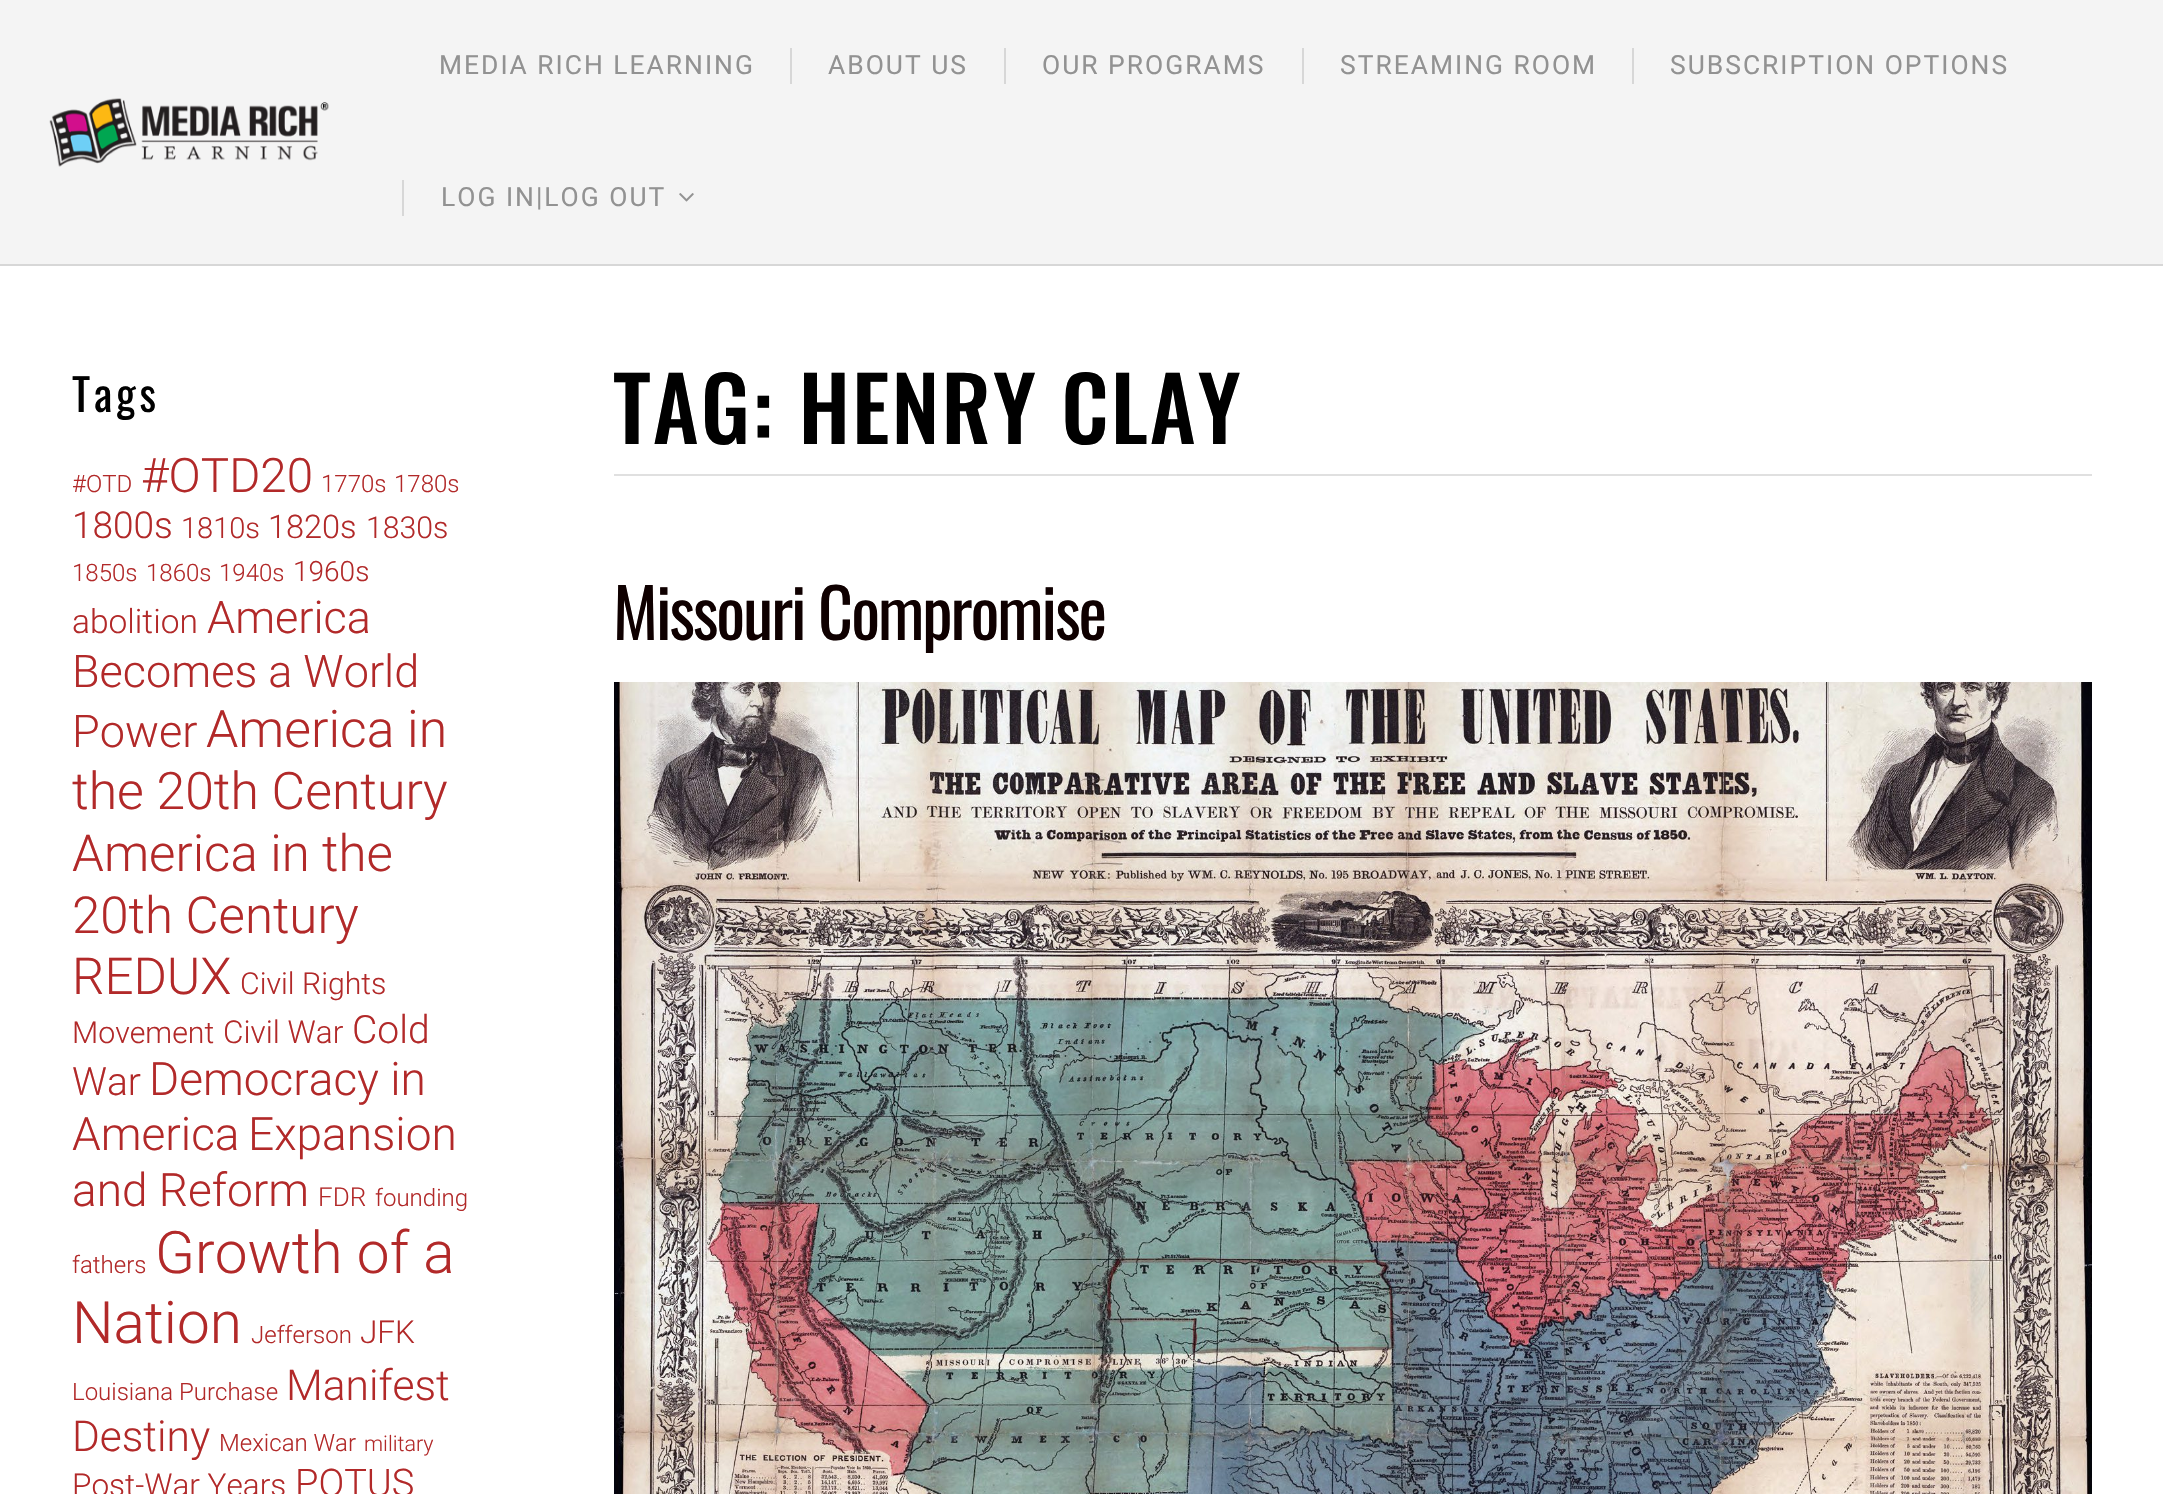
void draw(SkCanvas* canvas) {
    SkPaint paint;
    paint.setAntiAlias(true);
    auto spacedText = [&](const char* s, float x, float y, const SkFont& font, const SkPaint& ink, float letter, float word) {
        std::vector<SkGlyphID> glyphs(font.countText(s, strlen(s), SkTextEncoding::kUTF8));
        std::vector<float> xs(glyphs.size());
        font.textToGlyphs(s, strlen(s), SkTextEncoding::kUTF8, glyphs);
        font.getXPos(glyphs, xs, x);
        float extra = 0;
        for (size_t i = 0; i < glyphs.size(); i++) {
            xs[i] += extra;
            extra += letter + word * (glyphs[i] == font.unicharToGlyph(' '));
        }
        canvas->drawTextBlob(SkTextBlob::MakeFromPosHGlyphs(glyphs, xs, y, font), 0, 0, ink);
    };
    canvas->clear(0xFFF4F4F4);
    paint.setColor(0xFFD7D7D7);
    canvas->drawRect(SkRect::MakeXYWH(0, 264, 2163, 2), paint);
    canvas->drawImageRect(SkImages::DeferredFromEncodedData(SkData::MakeFromFileName("img1.png")), SkRect::MakeXYWH(49, 98, 280, 69), SkSamplingOptions());
    SkFont font1(fontMgr->matchFamilyStyle("Roboto", SkFontStyle::Normal()), 26.4f);
    font1.setSubpixel(true);
    paint.setColor(0xFF929292);
    spacedText("MEDIA RICH LEARNING", 439, 74, font1, paint, 2, 0);
    paint.setColor(0xFFD7D7D7);
    canvas->drawRect(SkRect::MakeXYWH(790, 48, 2, 36), paint);
    paint.setColor(0xFF929292);
    spacedText("ABOUT US", 828, 74, font1, paint, 2, 0);
    paint.setColor(0xFFD7D7D7);
    canvas->drawRect(SkRect::MakeXYWH(1004, 48, 2, 36), paint);
    paint.setColor(0xFF929292);
    spacedText("OUR PROGRAMS", 1042, 74, font1, paint, 2, 0);
    paint.setColor(0xFFD7D7D7);
    canvas->drawRect(SkRect::MakeXYWH(1302, 48, 2, 36), paint);
    paint.setColor(0xFF929292);
    spacedText("STREAMING ROOM", 1340, 74, font1, paint, 2, 0);
    paint.setColor(0xFFD7D7D7);
    canvas->drawRect(SkRect::MakeXYWH(1632, 48, 2, 36), paint);
    paint.setColor(0xFF929292);
    spacedText("SUBSCRIPTION OPTIONS", 1670, 74, font1, paint, 2, 0);
    paint.setColor(0xFFD7D7D7);
    canvas->drawRect(SkRect::MakeXYWH(402, 180, 2, 36), paint);
    paint.setColor(0xFF929292);
    spacedText("LOG IN|LOG OUT", 441, 206, font1, paint, 2, 0);
    canvas->drawImageRect(SkImages::DeferredFromEncodedData(SkData::MakeFromFileName("img2.png")), SkRect::MakeXYWH(679, 193, 15, 9), SkSamplingOptions());
    paint.setColor(0xFFFFFFFF);
    canvas->drawRect(SkRect::MakeXYWH(0, 266, 2163, 1228), paint);
    SkFont font2(fontMgr->matchFamilyStyle("Oswald", SkFontStyle::Normal()), 44);
    font2.setSubpixel(true);
    paint.setColor(0xFF000000);
    spacedText("Tags", 72, 412, font2, paint, 4, 0);
    SkFont font3(fontMgr->matchFamilyStyle("Roboto", SkFontStyle(300, SkFontStyle::kNormal_Width, SkFontStyle::kUpright_Slant)), 24);
    font3.setSubpixel(true);
    paint.setColor(0xFFB22929);
    canvas->drawString("#OTD", 72, 492, font3, paint);
    SkFont font4(fontMgr->matchFamilyStyle("Roboto", SkFontStyle(300, SkFontStyle::kNormal_Width, SkFontStyle::kUpright_Slant)), 47.5f);
    font4.setSubpixel(true);
    canvas->drawString("#OTD20", 141, 492, font4, paint);
    canvas->drawString("1770s", 321, 492, font3, paint);
    canvas->drawString("1780s", 394, 492, font3, paint);
    SkFont font5(fontMgr->matchFamilyStyle("Roboto", SkFontStyle(300, SkFontStyle::kNormal_Width, SkFontStyle::kUpright_Slant)), 37);
    font5.setSubpixel(true);
    canvas->drawString("1800s", 72, 538, font5, paint);
    SkFont font6(fontMgr->matchFamilyStyle("Roboto", SkFontStyle(300, SkFontStyle::kNormal_Width, SkFontStyle::kUpright_Slant)), 29);
    font6.setSubpixel(true);
    canvas->drawString("1810s", 181, 538, font6, paint);
    SkFont font7(fontMgr->matchFamilyStyle("Roboto", SkFontStyle(300, SkFontStyle::kNormal_Width, SkFontStyle::kUpright_Slant)), 32.5f);
    font7.setSubpixel(true);
    canvas->drawString("1820s", 268, 538, font7, paint);
    SkFont font8(fontMgr->matchFamilyStyle("Roboto", SkFontStyle(300, SkFontStyle::kNormal_Width, SkFontStyle::kUpright_Slant)), 30.25f);
    font8.setSubpixel(true);
    canvas->drawString("1830s", 366, 538, font8, paint);
    canvas->drawString("1850s", 72, 581, font3, paint);
    canvas->drawString("1860s", 146, 581, font3, paint);
    canvas->drawString("1940s", 219, 581, font3, paint);
    SkFont font9(fontMgr->matchFamilyStyle("Roboto", SkFontStyle(300, SkFontStyle::kNormal_Width, SkFontStyle::kUpright_Slant)), 28);
    font9.setSubpixel(true);
    canvas->drawString("1960s", 293, 581, font9, paint);
    SkFont font10(fontMgr->matchFamilyStyle("Roboto", SkFontStyle(300, SkFontStyle::kNormal_Width, SkFontStyle::kUpright_Slant)), 33.5f);
    font10.setSubpixel(true);
    canvas->drawString("abolition", 72, 633, font10, paint);
    SkFont font11(fontMgr->matchFamilyStyle("Roboto", SkFontStyle(300, SkFontStyle::kNormal_Width, SkFontStyle::kUpright_Slant)), 45);
    font11.setSubpixel(true);
    canvas->drawString("America", 207, 633, font11, paint);
    canvas->drawString("Becomes a World", 72, 687, font11, paint);
    canvas->drawString("Power", 72, 747, font11, paint);
    SkFont font12(fontMgr->matchFamilyStyle("Roboto", SkFontStyle(300, SkFontStyle::kNormal_Width, SkFontStyle::kUpright_Slant)), 51.75f);
    font12.setSubpixel(true);
    canvas->drawString("America in", 206, 747, font12, paint);
    canvas->drawString("the 20th Century", 72, 809, font12, paint);
    SkFont font13(fontMgr->matchFamilyStyle("Roboto", SkFontStyle(300, SkFontStyle::kNormal_Width, SkFontStyle::kUpright_Slant)), 51);
    font13.setSubpixel(true);
    canvas->drawString("America in the", 72, 871, font13, paint);
    canvas->drawString("20th Century", 72, 933, font13, paint);
    canvas->drawString("REDUX", 72, 994, font13, paint);
    canvas->drawString("Civil Rights", 240, 994, font8, paint);
    canvas->drawString("Movement", 72, 1043, font8, paint);
    SkFont font14(fontMgr->matchFamilyStyle("Roboto", SkFontStyle(300, SkFontStyle::kNormal_Width, SkFontStyle::kUpright_Slant)), 31.5f);
    font14.setSubpixel(true);
    canvas->drawString("Civil War", 223, 1043, font14, paint);
    SkFont font15(fontMgr->matchFamilyStyle("Roboto", SkFontStyle(300, SkFontStyle::kNormal_Width, SkFontStyle::kUpright_Slant)), 39);
    font15.setSubpixel(true);
    canvas->drawString("Cold", 352, 1043, font15, paint);
    canvas->drawString("War", 72, 1095, font15, paint);
    SkFont font16(fontMgr->matchFamilyStyle("Roboto", SkFontStyle(300, SkFontStyle::kNormal_Width, SkFontStyle::kUpright_Slant)), 46);
    font16.setSubpixel(true);
    canvas->drawString("Democracy in", 149, 1095, font16, paint);
    canvas->drawString("America", 72, 1150, font16, paint);
    canvas->drawString("Expansion", 248, 1150, font16, paint);
    canvas->drawString("and Reform", 72, 1206, font16, paint);
    SkFont font17(fontMgr->matchFamilyStyle("Roboto", SkFontStyle(300, SkFontStyle::kNormal_Width, SkFontStyle::kUpright_Slant)), 26);
    font17.setSubpixel(true);
    canvas->drawString("FDR", 318, 1206, font17, paint);
    canvas->drawString("founding", 375, 1206, font3, paint);
    canvas->drawString("fathers", 72, 1273, font3, paint);
    SkFont font18(fontMgr->matchFamilyStyle("Roboto", SkFontStyle(300, SkFontStyle::kNormal_Width, SkFontStyle::kUpright_Slant)), 58.5f);
    font18.setSubpixel(true);
    canvas->drawString("Growth of a", 155, 1273, font18, paint);
    canvas->drawString("Nation", 72, 1343, font18, paint);
    canvas->drawString("Jefferson", 251, 1343, font3, paint);
    canvas->drawString("JFK", 360, 1343, font14, paint);
    canvas->drawString("Louisiana Purchase", 72, 1400, font3, paint);
    SkFont font19(fontMgr->matchFamilyStyle("Roboto", SkFontStyle(300, SkFontStyle::kNormal_Width, SkFontStyle::kUpright_Slant)), 42.5f);
    font19.setSubpixel(true);
    canvas->drawString("Manifest", 286, 1400, font19, paint);
    canvas->drawString("Destiny", 72, 1451, font19, paint);
    canvas->drawString("Mexican War", 219, 1451, font3, paint);
    SkFont font20(fontMgr->matchFamilyStyle("Roboto", SkFontStyle(300, SkFontStyle::kNormal_Width, SkFontStyle::kUpright_Slant)), 21.5f);
    font20.setSubpixel(true);
    canvas->drawString("military", 364, 1451, font20, paint);
    canvas->drawString("Post-War Years", 72, 1496, font14, paint);
    SkFont font21(fontMgr->matchFamilyStyle("Roboto", SkFontStyle(300, SkFontStyle::kNormal_Width, SkFontStyle::kUpright_Slant)), 38);
    font21.setSubpixel(true);
    canvas->drawString("POTUS", 295, 1496, font21, paint);
    paint.setColor(0xFFE0E0E0);
    canvas->drawRect(SkRect::MakeXYWH(614, 474, 1478, 2), paint);
    SkFont font22(fontMgr->matchFamilyStyle("Oswald", SkFontStyle(500, SkFontStyle::kNormal_Width, SkFontStyle::kUpright_Slant)), 88);
    font22.setSubpixel(true);
    paint.setColor(0xFF000000);
    spacedText("TAG: HENRY CLAY", 613, 444, font22, paint, 2, 0);
    SkFont font23(fontMgr->matchFamilyStyle("Oswald", SkFontStyle::Normal()), 68);
    font23.setSubpixel(true);
    paint.setColor(0xFF0F0000);
    spacedText("Missouri Compromise", 613, 640, font23, paint, -2, 0);
    canvas->drawImageRect(SkImages::DeferredFromEncodedData(SkData::MakeFromFileName("img3.png")), SkRect::MakeXYWH(614, 682, 1478, 812), SkSamplingOptions());
}
